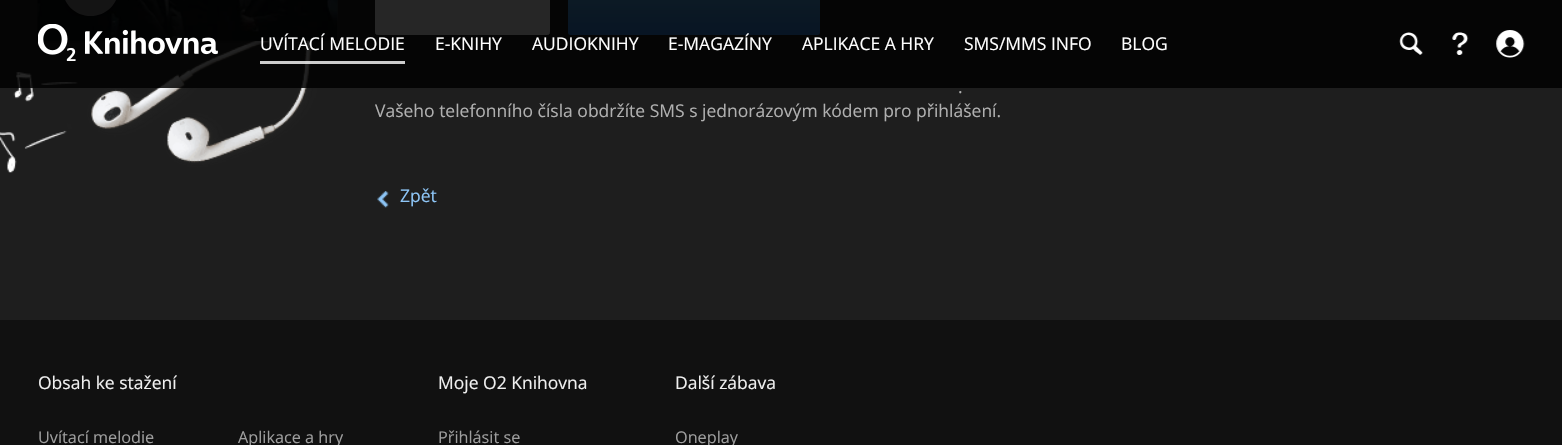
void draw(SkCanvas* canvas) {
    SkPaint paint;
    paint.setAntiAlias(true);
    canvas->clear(0xFF1E1E1E);
    canvas->drawImageRect(SkImages::DeferredFromEncodedData(SkData::MakeFromFileName("img7.png")), SkRect::MakeXYWH(0, 41, 324, 132), SkSamplingOptions());
    paint.setColor(0x33000000);
    paint.setMaskFilter(SkMaskFilter::MakeBlur(kNormal_SkBlurStyle, 3));
    canvas->drawRect(SkRect::MakeXYWH(38, -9, 300, 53), paint);
    paint.setMaskFilter(nullptr);
    paint.setColor(0x1AFFFFFF);
    canvas->drawRect(SkRect::MakeXYWH(337, 0, 1, 41), paint);
    canvas->drawImageRect(SkImages::DeferredFromEncodedData(SkData::MakeFromFileName("img5.png")), SkRect::MakeXYWH(37, 0, 301, 41), SkSamplingOptions());
    canvas->drawImageRect(SkImages::DeferredFromEncodedData(SkData::MakeFromFileName("img6.png")), SkRect::MakeXYWH(65, 0, 51, 16), SkSamplingOptions());
    paint.setColor(0xFFFFFFFF);
    canvas->drawRoundRect(SkRect::MakeXYWH(375.5f, -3.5f, 174, 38), 2, 2, paint);
    paint.setStyle(SkPaint::kStroke_Style);
    paint.setStrokeWidth(1);
    canvas->drawRoundRect(SkRect::MakeXYWH(375.5f, -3.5f, 174, 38), 2, 2, paint);
    paint.setStyle(SkPaint::kFill_Style);
    {
        const SkColor colors[] = {0xFF5DBCF7, 0xFF3188ED};
        const float stops[] = {0, 1};
        const SkPoint ends[] = {{694, -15}, {694, 35}};
        paint.setShader(SkGradientShader::MakeLinear(ends, colors, stops, 2, SkTileMode::kClamp));
        paint.setAlpha(255);
    }
    canvas->drawRoundRect(SkRect::MakeXYWH(568, -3, 252, 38), 2.5f, 2.5f, paint);
    paint.setShader(nullptr);
    paint.setColor(0xD9000000);
    canvas->drawRect(SkRect::MakeXYWH(0, 0, 1562, 88), paint);
    canvas->drawImageRect(SkImages::DeferredFromEncodedData(SkData::MakeFromFileName("img1.png")), SkRect::MakeXYWH(38, 24, 180, 37), SkSamplingOptions());
    SkFont font1(fontMgr->matchFamilyStyle("Open Sans", SkFontStyle::Normal()), 17.5f);
    font1.setSubpixel(true);
    paint.setColor(0xFFFFFFFF);
    canvas->drawString("UVÍTACÍ MELODIE", 260, 50, font1, paint);
    paint.setColor(0xCCFFFFFF);
    canvas->drawRect(SkRect::MakeXYWH(260, 61, 145, 3), paint);
    paint.setColor(0xFFFFFFFF);
    canvas->drawString("E-KNIHY", 435, 50, font1, paint);
    canvas->drawString("AUDIOKNIHY", 532, 50, font1, paint);
    canvas->drawString("E-MAGAZÍNY", 668, 50, font1, paint);
    canvas->drawString("APLIKACE A HRY", 802, 50, font1, paint);
    canvas->drawString("SMS/MMS INFO", 964, 50, font1, paint);
    canvas->drawString("BLOG", 1121, 50, font1, paint);
    canvas->drawImageRect(SkImages::DeferredFromEncodedData(SkData::MakeFromFileName("img2.png")), SkRect::MakeXYWH(1399, 32, 24, 23), SkSamplingOptions());
    canvas->drawImageRect(SkImages::DeferredFromEncodedData(SkData::MakeFromFileName("img3.png")), SkRect::MakeXYWH(1452, 32, 17, 23), SkSamplingOptions());
    canvas->drawImageRect(SkImages::DeferredFromEncodedData(SkData::MakeFromFileName("img4.png")), SkRect::MakeXYWH(1496, 30, 29, 28), SkSamplingOptions());
    paint.setColor(0xFFB0B0B0);
    canvas->drawString(".", 958, 93, font1, paint);
    canvas->drawString("Vašeho telefonního čísla obdržíte SMS s jednorázovým kódem pro přihlášení.", 375, 117, font1, paint);
    canvas->drawImageRect(SkImages::DeferredFromEncodedData(SkData::MakeFromFileName("img8.png")), SkRect::MakeXYWH(377, 191, 12, 17), SkSamplingOptions());
    paint.setColor(0xFF8EC6F7);
    canvas->drawString("Zpět", 400, 202, font1, paint);
    paint.setColor(0xFF111111);
    canvas->drawRect(SkRect::MakeXYWH(0, 320, 1562, 125), paint);
    paint.setColor(0xFFF0F0F0);
    canvas->drawString("Obsah ke stažení", 38, 389, font1, paint);
    SkFont font2(fontMgr->matchFamilyStyle("Open Sans", SkFontStyle::Normal()), 16.25f);
    font2.setSubpixel(true);
    paint.setColor(0xFF9E9E9E);
    canvas->drawString("Uvítací melodie", 38, 443, font2, paint);
    canvas->drawString("Aplikace a hry", 238, 443, font2, paint);
    paint.setColor(0xFFF0F0F0);
    canvas->drawString("Moje O2 Knihovna", 438, 389, font1, paint);
    paint.setColor(0xFF9E9E9E);
    canvas->drawString("Přihlásit se", 438, 443, font2, paint);
    paint.setColor(0xFFF0F0F0);
    canvas->drawString("Další zábava", 675, 389, font1, paint);
    paint.setColor(0xFF9E9E9E);
    canvas->drawString("Oneplay", 675, 443, font2, paint);
}
